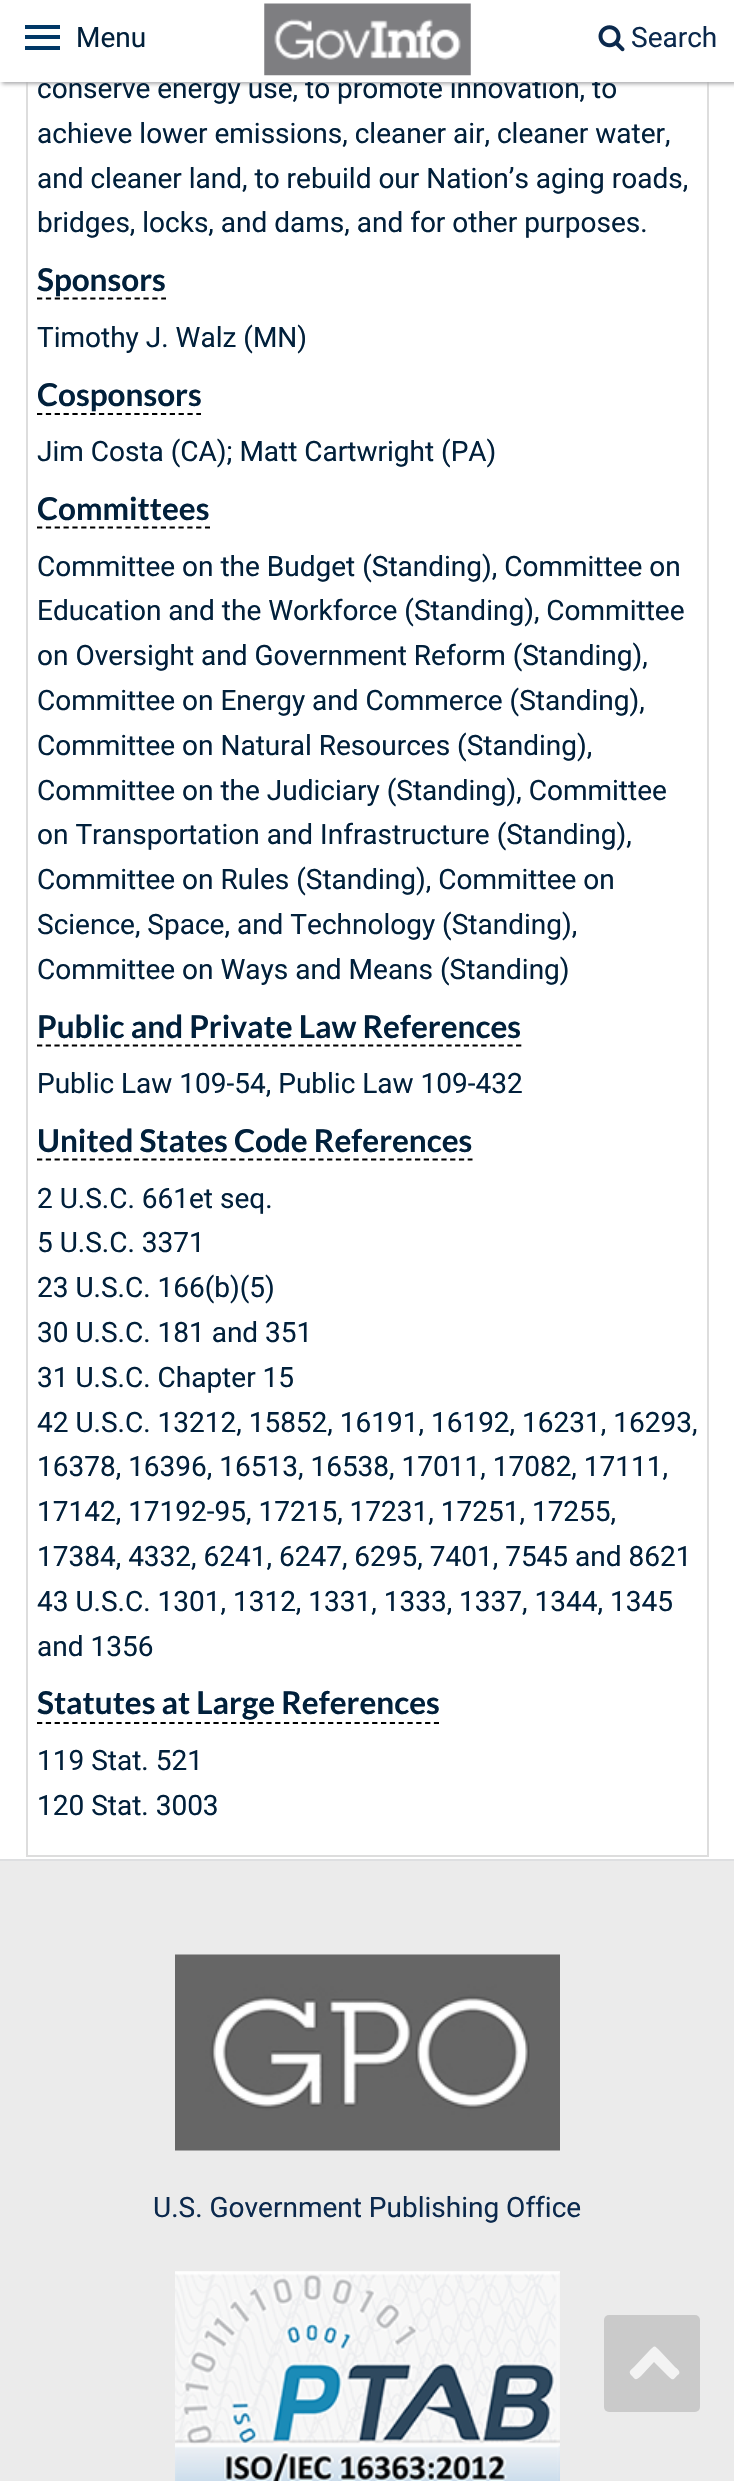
void draw(SkCanvas* canvas) {
    SkPaint paint;
    paint.setAntiAlias(true);
    canvas->clear(0xFFFFFFFF);
    paint.setColor(0xFFDDDDDD);
    canvas->drawRect(SkRect::MakeXYWH(707, 82, 2, 1775), paint);
    canvas->drawRect(SkRect::MakeXYWH(26, 1855, 683, 2), paint);
    canvas->drawRect(SkRect::MakeXYWH(26, 82, 2, 1775), paint);
    paint.setColor(0xFFACACAE);
    paint.setMaskFilter(SkMaskFilter::MakeBlur(kNormal_SkBlurStyle, 2));
    canvas->drawRect(SkRect::MakeXYWH(2, 0, 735, 84), paint);
    paint.setMaskFilter(nullptr);
    SkFont font1(fontMgr->matchFamilyStyle("Roboto", SkFontStyle::Normal()), 28);
    font1.setSubpixel(true);
    paint.setColor(0xFF01203B);
    canvas->drawString("conserve energy use, to promote innovation, to", 37, 98, font1, paint);
    paint.setColor(0xFFFFFFFF);
    canvas->drawRect(SkRect::MakeXYWH(0, 0, 734, 82), paint);
    paint.setColor(0xFF003866);
    canvas->drawRect(SkRect::MakeXYWH(25, 25, 35, 4), paint);
    canvas->drawRect(SkRect::MakeXYWH(25, 35, 35, 4), paint);
    canvas->drawRect(SkRect::MakeXYWH(25, 46, 35, 4), paint);
    paint.setColor(0xFF01203B);
    canvas->drawString("Menu", 76, 47, font1, paint);
    canvas->drawImageRect(SkImages::DeferredFromEncodedData(SkData::MakeFromFileName("img1.png")), SkRect::MakeXYWH(264, 3, 207, 73), SkSamplingOptions());
    canvas->drawImageRect(SkImages::DeferredFromEncodedData(SkData::MakeFromFileName("img2.png")), SkRect::MakeXYWH(598, 25, 27, 27), SkSamplingOptions());
    paint.setColor(0xFF0B294D);
    canvas->drawString("Search", 631, 47, font1, paint);
    paint.setColor(0xFF01203B);
    canvas->drawString("achieve lower emissions, cleaner air, cleaner water,", 37, 143, font1, paint);
    canvas->drawString("and cleaner land, to rebuild our Nation’s aging roads,", 37, 188, font1, paint);
    canvas->drawString("bridges, locks, and dams, and for other purposes.", 37, 232, font1, paint);
    SkFont font2(fontMgr->matchFamilyStyle("Lato", SkFontStyle::Bold()), 31.5f);
    font2.setSubpixel(true);
    canvas->drawString("Sponsors", 37, 291, font2, paint);
    paint.setStyle(SkPaint::kStroke_Style);
    paint.setStrokeWidth(1.8f);
    paint.setColor(0xFF000000);
    paint.setPathEffect(SkDashPathEffect::Make({{5.25f, 3.62f}}, 0));
    canvas->drawPath(SkPathBuilder().moveTo(37, 298.5f).lineTo(166, 298.5f).detach(), paint);
    paint.setPathEffect(nullptr);
    paint.setStyle(SkPaint::kFill_Style);
    paint.setColor(0xFF01203B);
    canvas->drawString("Timothy J. Walz (MN)", 37, 347, font1, paint);
    canvas->drawString("Cosponsors", 37, 406, font2, paint);
    paint.setStyle(SkPaint::kStroke_Style);
    paint.setColor(0xFF000000);
    paint.setPathEffect(SkDashPathEffect::Make({{5.25f, 3.6f}}, 0));
    canvas->drawPath(SkPathBuilder().moveTo(37, 414).lineTo(201, 414).detach(), paint);
    paint.setPathEffect(nullptr);
    paint.setStyle(SkPaint::kFill_Style);
    paint.setColor(0xFF01203B);
    canvas->drawString("Jim Costa (CA); Matt Cartwright (PA)", 37, 461, font1, paint);
    canvas->drawString("Committees", 37, 520, font2, paint);
    paint.setStyle(SkPaint::kStroke_Style);
    paint.setColor(0xFF000000);
    paint.setPathEffect(SkDashPathEffect::Make({{5.25f, 3.59f}}, 0));
    canvas->drawPath(SkPathBuilder().moveTo(37, 527.5f).lineTo(210, 527.5f).detach(), paint);
    paint.setPathEffect(nullptr);
    paint.setStyle(SkPaint::kFill_Style);
    paint.setColor(0xFF01203B);
    canvas->drawString("Committee on the Budget (Standing), Committee on", 37, 576, font1, paint);
    canvas->drawString("Education and the Workforce (Standing), Committee", 37, 620, font1, paint);
    canvas->drawString("on Oversight and Government Reform (Standing),", 37, 665, font1, paint);
    canvas->drawString("Committee on Energy and Commerce (Standing),", 37, 710, font1, paint);
    canvas->drawString("Committee on Natural Resources (Standing),", 37, 755, font1, paint);
    canvas->drawString("Committee on the Judiciary (Standing), Committee", 37, 800, font1, paint);
    canvas->drawString("on Transportation and Infrastructure (Standing),", 37, 844, font1, paint);
    canvas->drawString("Committee on Rules (Standing), Committee on", 37, 889, font1, paint);
    canvas->drawString("Science, Space, and Technology (Standing),", 37, 934, font1, paint);
    canvas->drawString("Committee on Ways and Means (Standing)", 37, 979, font1, paint);
    canvas->drawString("Public and Private Law References", 37, 1038, font2, paint);
    paint.setStyle(SkPaint::kStroke_Style);
    paint.setColor(0xFF000000);
    paint.setPathEffect(SkDashPathEffect::Make({{5.25f, 3.46f}}, 0));
    canvas->drawPath(SkPathBuilder().moveTo(37, 1045.5f).lineTo(521.5f, 1045.5f).detach(), paint);
    paint.setPathEffect(nullptr);
    paint.setStyle(SkPaint::kFill_Style);
    paint.setColor(0xFF01203B);
    canvas->drawString("Public Law 109-54, Public Law 109-432", 37, 1093, font1, paint);
    canvas->drawString("United States Code References", 37, 1152, font2, paint);
    paint.setStyle(SkPaint::kStroke_Style);
    paint.setColor(0xFF000000);
    paint.setPathEffect(SkDashPathEffect::Make({{5.25f, 3.54f}}, 0));
    canvas->drawPath(SkPathBuilder().moveTo(37, 1159.5f).lineTo(472.5f, 1159.5f).detach(), paint);
    paint.setPathEffect(nullptr);
    paint.setStyle(SkPaint::kFill_Style);
    paint.setColor(0xFF01203B);
    canvas->drawString("2 U.S.C. 661et seq.", 37, 1208, font1, paint);
    canvas->drawString("5 U.S.C. 3371", 37, 1252, font1, paint);
    canvas->drawString("23 U.S.C. 166(b)(5)", 37, 1297, font1, paint);
    canvas->drawString("30 U.S.C. 181 and 351", 37, 1342, font1, paint);
    canvas->drawString("31 U.S.C. Chapter 15", 37, 1387, font1, paint);
    canvas->drawString("42 U.S.C. 13212, 15852, 16191, 16192, 16231, 16293,", 37, 1432, font1, paint);
    canvas->drawString("16378, 16396, 16513, 16538, 17011, 17082, 17111,", 37, 1476, font1, paint);
    canvas->drawString("17142, 17192-95, 17215, 17231, 17251, 17255,", 37, 1521, font1, paint);
    canvas->drawString("17384, 4332, 6241, 6247, 6295, 7401, 7545 and 8621", 37, 1566, font1, paint);
    canvas->drawString("43 U.S.C. 1301, 1312, 1331, 1333, 1337, 1344, 1345", 37, 1611, font1, paint);
    canvas->drawString("and 1356", 37, 1656, font1, paint);
    canvas->drawString("Statutes at Large References", 37, 1714, font2, paint);
    paint.setStyle(SkPaint::kStroke_Style);
    paint.setColor(0xFF000000);
    paint.setPathEffect(SkDashPathEffect::Make({{5.25f, 3.57f}}, 0));
    canvas->drawPath(SkPathBuilder().moveTo(37, 1723).lineTo(439, 1723).detach(), paint);
    paint.setPathEffect(nullptr);
    paint.setStyle(SkPaint::kFill_Style);
    paint.setColor(0xFF01203B);
    canvas->drawString("119 Stat. 521", 37, 1770, font1, paint);
    canvas->drawString("120 Stat. 3003", 37, 1815, font1, paint);
    paint.setColor(0xFFEBEBEB);
    canvas->drawRect(SkRect::MakeXYWH(0, 1861, 734, 620), paint);
    paint.setColor(0xFFDEDFE1);
    canvas->drawRect(SkRect::MakeXYWH(0, 1859, 734, 2), paint);
    canvas->drawImageRect(SkImages::DeferredFromEncodedData(SkData::MakeFromFileName("img3.png")), SkRect::MakeXYWH(175, 1954, 385, 197), SkSamplingOptions());
    paint.setColor(0xFF0B294D);
    canvas->drawString("U.S. Government Publishing Office", 153, 2217, font1, paint);
    canvas->drawImageRect(SkImages::DeferredFromEncodedData(SkData::MakeFromFileName("img4.png")), SkRect::MakeXYWH(175, 2271, 385, 210), SkSamplingOptions());
    paint.setColor(0xFFCACACA);
    canvas->drawRoundRect(SkRect::MakeXYWH(604, 2315, 96, 97), 5, 5, paint);
    paint.setColor(0xFFF3F3F3);
    canvas->drawPath(SkPathBuilder().moveTo(679, 2374).cubicTo(673, 2379, 674, 2382, 668, 2376).lineTo(654, 2362).lineTo(641, 2376).cubicTo(635, 2381, 636, 2380, 631, 2375).cubicTo(628, 2371, 631, 2370, 634, 2367).lineTo(649, 2351).cubicTo(655, 2345, 654, 2345, 660, 2351).lineTo(675, 2367).cubicTo(676, 2368, 681, 2371, 679, 2374).close().detach(), paint);
}
